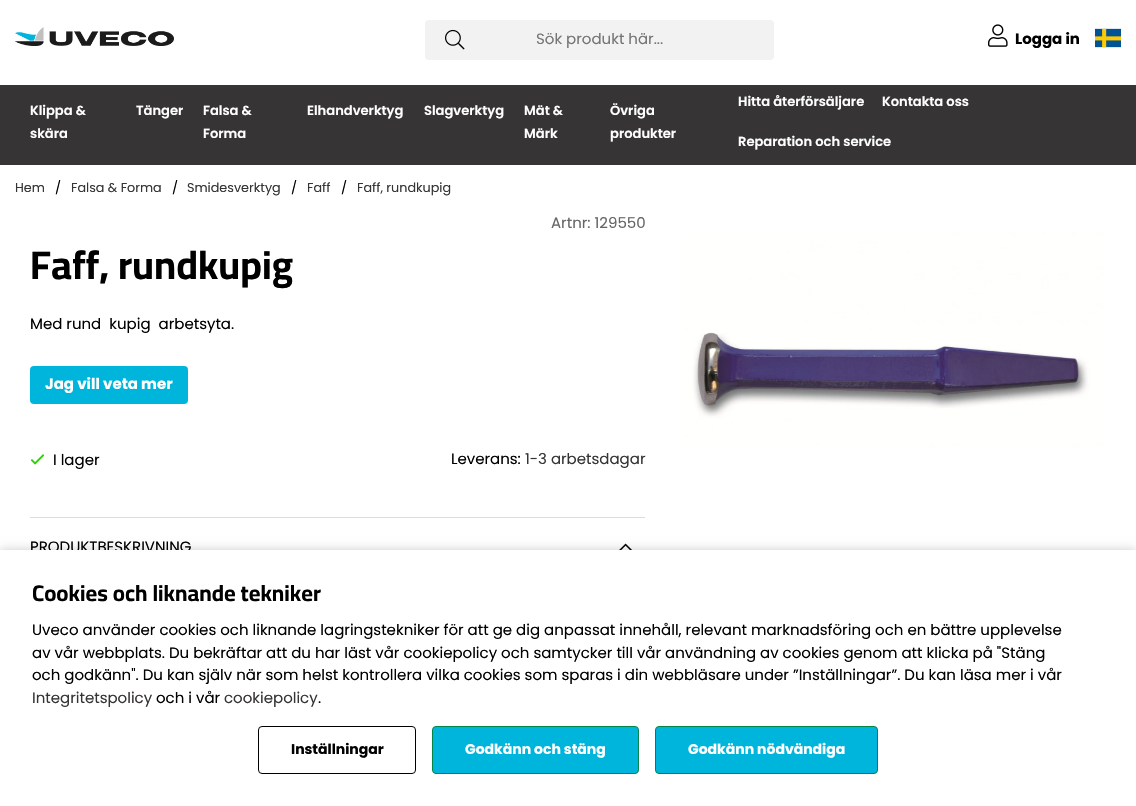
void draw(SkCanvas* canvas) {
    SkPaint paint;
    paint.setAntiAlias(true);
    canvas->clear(0xFFFFFFFF);
    canvas->drawImageRect(SkImages::DeferredFromEncodedData(SkData::MakeFromFileName("img1.png")), SkRect::MakeXYWH(15, 27, 159, 19), SkSamplingOptions());
    paint.setColor(0xFFF2F2F2);
    canvas->drawRoundRect(SkRect::MakeXYWH(425, 20, 349, 40), 4, 4, paint);
    canvas->drawImageRect(SkImages::DeferredFromEncodedData(SkData::MakeFromFileName("img2.png")), SkRect::MakeXYWH(445, 29, 20, 21), SkSamplingOptions());
    SkFont font1(fontMgr->matchFamilyStyle("Poppins", SkFontStyle::Normal()), 15);
    font1.setSubpixel(true);
    paint.setColor(0xFF757575);
    canvas->drawString("Sök produkt här...", 536, 44, font1, paint);
    canvas->drawImageRect(SkImages::DeferredFromEncodedData(SkData::MakeFromFileName("img3.png")), SkRect::MakeXYWH(988, 24, 20, 23), SkSamplingOptions());
    SkFont font2(fontMgr->matchFamilyStyle("Poppins", SkFontStyle::Bold()), 15);
    font2.setSubpixel(true);
    paint.setColor(0xFF000000);
    canvas->drawString("Logga in", 1015, 44, font2, paint);
    canvas->drawImageRect(SkImages::DeferredFromEncodedData(SkData::MakeFromFileName("img4.png")), SkRect::MakeXYWH(1095, 28, 26, 20), SkSamplingOptions());
    paint.setColor(0xFF363434);
    canvas->drawRect(SkRect::MakeXYWH(0, 85, 1136, 80), paint);
    SkFont font3(fontMgr->matchFamilyStyle("Poppins", SkFontStyle(600, SkFontStyle::kNormal_Width, SkFontStyle::kUpright_Slant)), 13.1f);
    font3.setSubpixel(true);
    paint.setColor(0xFFFFFFFF);
    canvas->drawString("Klippa &", 30, 115, font3, paint);
    canvas->drawString("skära", 30, 138, font3, paint);
    canvas->drawString("Tänger", 136, 115, font3, paint);
    canvas->drawString("Falsa &", 203, 115, font3, paint);
    canvas->drawString("Forma", 203, 138, font3, paint);
    canvas->drawString("Elhandverktyg", 307, 115, font3, paint);
    canvas->drawString("Slagverktyg", 424, 115, font3, paint);
    canvas->drawString("Mät &", 524, 115, font3, paint);
    canvas->drawString("Märk", 524, 138, font3, paint);
    canvas->drawString("Övriga", 610, 115, font3, paint);
    canvas->drawString("produkter", 610, 138, font3, paint);
    canvas->drawString("Hitta återförsäljare", 738, 106, font3, paint);
    canvas->drawString("Kontakta oss", 882, 106, font3, paint);
    canvas->drawString("Reparation och service", 738, 146, font3, paint);
    SkFont font4(fontMgr->matchFamilyStyle("Poppins", SkFontStyle::Normal()), 12.75f);
    font4.setSubpixel(true);
    paint.setColor(0xFF363434);
    canvas->drawString("Hem", 15, 192, font4, paint);
    paint.setColor(0xFF000000);
    canvas->drawString("/", 55, 192, font4, paint);
    paint.setColor(0xFF363434);
    canvas->drawString("Falsa & Forma", 71, 192, font4, paint);
    paint.setColor(0xFF000000);
    canvas->drawString("/", 172, 192, font4, paint);
    paint.setColor(0xFF363434);
    canvas->drawString("Smidesverktyg", 187, 192, font4, paint);
    paint.setColor(0xFF000000);
    canvas->drawString("/", 291, 192, font4, paint);
    paint.setColor(0xFF363434);
    canvas->drawString("Faff", 307, 192, font4, paint);
    paint.setColor(0xFF000000);
    canvas->drawString("/", 341, 192, font4, paint);
    paint.setColor(0xFF363434);
    canvas->drawString("Faff, rundkupig", 357, 192, font4, paint);
    paint.setColor(0xFF666666);
    canvas->drawString("Artnr: 129550", 551, 228, font1, paint);
    SkFont font5(fontMgr->matchFamilyStyle("Cairo", SkFontStyle::Bold()), 40);
    font5.setSubpixel(true);
    paint.setColor(0xFF000000);
    canvas->drawString("Faff, rundkupig", 30, 279, font5, paint);
    canvas->drawString("Med rund  kupig  arbetsyta.", 30, 329, font1, paint);
    paint.setColor(0xFF00B5DB);
    canvas->drawRoundRect(SkRect::MakeXYWH(30, 366, 158, 38), 4, 4, paint);
    paint.setColor(0xFFFFFFFF);
    canvas->drawString("Jag vill veta mer", 45, 389, font2, paint);
    canvas->drawImageRect(SkImages::DeferredFromEncodedData(SkData::MakeFromFileName("img5.png")), SkRect::MakeXYWH(30, 454, 15, 11), SkSamplingOptions());
    paint.setColor(0xFF000000);
    canvas->drawString("I lager", 53, 465, font1, paint);
    canvas->drawString("Leverans:", 451, 464, font1, paint);
    paint.setColor(0xFF363434);
    canvas->drawString("1-3 arbetsdagar", 525, 464, font1, paint);
    paint.setColor(0xFFDDDDDD);
    canvas->drawRect(SkRect::MakeXYWH(30, 517, 615, 1), paint);
    paint.setColor(0xFF000000);
    canvas->drawString("PRODUKTBESKRIVNING", 30, 552, font1, paint);
    canvas->drawImageRect(SkImages::DeferredFromEncodedData(SkData::MakeFromFileName("img6.png")), SkRect::MakeXYWH(619, 543, 13, 7), SkSamplingOptions());
    canvas->drawImageRect(SkImages::DeferredFromEncodedData(SkData::MakeFromFileName("img7.png")), SkRect::MakeXYWH(679, 231, 425, 217), SkSamplingOptions());
    paint.setColor(0x33000000);
    paint.setMaskFilter(SkMaskFilter::MakeBlur(kNormal_SkBlurStyle, 5));
    canvas->drawRect(SkRect::MakeXYWH(0, 550, 1136, 256), paint);
    paint.setMaskFilter(nullptr);
    paint.setColor(0xFFFFFFFF);
    canvas->drawRect(SkRect::MakeXYWH(0, 550, 1136, 256), paint);
    SkFont font6(fontMgr->matchFamilyStyle("Cairo", SkFontStyle::Bold()), 22.5f);
    font6.setSubpixel(true);
    paint.setColor(0xFF000000);
    canvas->drawString("Cookies och liknande tekniker", 32, 601, font6, paint);
    canvas->drawString("Uveco använder cookies och liknande lagringstekniker för att ge dig anpassat innehåll, relevant marknadsföring och en bättre upplevelse", 32, 635, font1, paint);
    canvas->drawString("av vår webbplats. Du bekräftar att du har läst vår cookiepolicy och samtycker till vår användning av cookies genom att klicka på \"Stäng", 32, 658, font1, paint);
    canvas->drawString("och godkänn\". Du kan själv när som helst kontrollera vilka cookies som sparas i din webbläsare under ”Inställningar”. Du kan läsa mer i vår", 32, 680, font1, paint);
    paint.setColor(0xFF363434);
    canvas->drawString("Integritetspolicy", 32, 703, font1, paint);
    paint.setColor(0xFF000000);
    canvas->drawString("och i vår", 156, 703, font1, paint);
    paint.setColor(0xFF363434);
    canvas->drawString("cookiepolicy", 224, 703, font1, paint);
    paint.setColor(0xFF000000);
    canvas->drawString(".", 318, 703, font1, paint);
    paint.setStyle(SkPaint::kStroke_Style);
    paint.setStrokeWidth(1);
    canvas->drawRoundRect(SkRect::MakeXYWH(258.5f, 726.5f, 157, 47), 3.5f, 3.5f, paint);
    SkFont font7(fontMgr->matchFamilyStyle("Poppins", SkFontStyle::Bold()), 14);
    font7.setSubpixel(true);
    paint.setStyle(SkPaint::kFill_Style);
    canvas->drawString("Inställningar", 291, 754, font7, paint);
    paint.setColor(0xFF00B5DB);
    canvas->drawRoundRect(SkRect::MakeXYWH(432.5f, 726.5f, 206, 47), 3.5f, 3.5f, paint);
    paint.setStyle(SkPaint::kStroke_Style);
    paint.setColor(0xFF008448);
    canvas->drawRoundRect(SkRect::MakeXYWH(432.5f, 726.5f, 206, 47), 3.5f, 3.5f, paint);
    paint.setStyle(SkPaint::kFill_Style);
    paint.setColor(0xFFFFFFFF);
    canvas->drawString("Godkänn och stäng", 465, 754, font7, paint);
    paint.setColor(0xFF00B5DB);
    canvas->drawRoundRect(SkRect::MakeXYWH(655.5f, 726.5f, 222, 47), 3.5f, 3.5f, paint);
    paint.setStyle(SkPaint::kStroke_Style);
    paint.setColor(0xFF008448);
    canvas->drawRoundRect(SkRect::MakeXYWH(655.5f, 726.5f, 222, 47), 3.5f, 3.5f, paint);
    paint.setStyle(SkPaint::kFill_Style);
    paint.setColor(0xFFFFFFFF);
    canvas->drawString("Godkänn nödvändiga", 688, 754, font7, paint);
}
